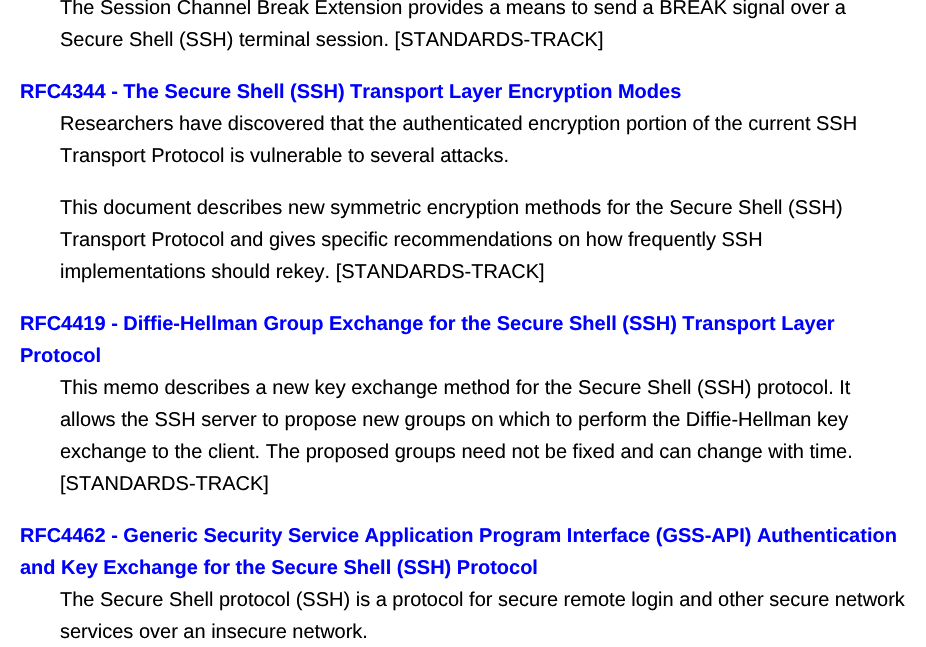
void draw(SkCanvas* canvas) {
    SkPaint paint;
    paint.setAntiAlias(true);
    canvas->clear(0xFFFFFFFF);
    SkFont font1(fontMgr->matchFamilyStyle("Liberation Sans", SkFontStyle::Normal()), 20);
    font1.setSubpixel(true);
    paint.setColor(0xFF000000);
    canvas->drawString("The Session Channel Break Extension provides a means to send a BREAK signal over a", 60, 14, font1, paint);
    canvas->drawString("Secure Shell (SSH) terminal session. [STANDARDS-TRACK]", 60, 46, font1, paint);
    SkFont font2(fontMgr->matchFamilyStyle("Liberation Sans", SkFontStyle::Bold()), 20);
    font2.setSubpixel(true);
    paint.setColor(0xFF0000FF);
    canvas->drawString("RFC4344 - The Secure Shell (SSH) Transport Layer Encryption Modes", 20, 98, font2, paint);
    paint.setColor(0xFF000000);
    canvas->drawString("Researchers have discovered that the authenticated encryption portion of the current SSH", 60, 130, font1, paint);
    canvas->drawString("Transport Protocol is vulnerable to several attacks.", 60, 162, font1, paint);
    canvas->drawString("This document describes new symmetric encryption methods for the Secure Shell (SSH)", 60, 214, font1, paint);
    canvas->drawString("Transport Protocol and gives specific recommendations on how frequently SSH", 60, 246, font1, paint);
    canvas->drawString("implementations should rekey. [STANDARDS-TRACK]", 60, 278, font1, paint);
    paint.setColor(0xFF0000FF);
    canvas->drawString("RFC4419 - Diffie-Hellman Group Exchange for the Secure Shell (SSH) Transport Layer", 20, 330, font2, paint);
    canvas->drawString("Protocol", 20, 362, font2, paint);
    paint.setColor(0xFF000000);
    canvas->drawString("This memo describes a new key exchange method for the Secure Shell (SSH) protocol. It", 60, 394, font1, paint);
    canvas->drawString("allows the SSH server to propose new groups on which to perform the Diffie-Hellman key", 60, 426, font1, paint);
    canvas->drawString("exchange to the client. The proposed groups need not be fixed and can change with time.", 60, 458, font1, paint);
    canvas->drawString("[STANDARDS-TRACK]", 60, 490, font1, paint);
    paint.setColor(0xFF0000FF);
    canvas->drawString("RFC4462 - Generic Security Service Application Program Interface (GSS-API) Authentication", 20, 542, font2, paint);
    canvas->drawString("and Key Exchange for the Secure Shell (SSH) Protocol", 20, 574, font2, paint);
    paint.setColor(0xFF000000);
    canvas->drawString("The Secure Shell protocol (SSH) is a protocol for secure remote login and other secure network", 60, 606, font1, paint);
    canvas->drawString("services over an insecure network.", 60, 638, font1, paint);
}
